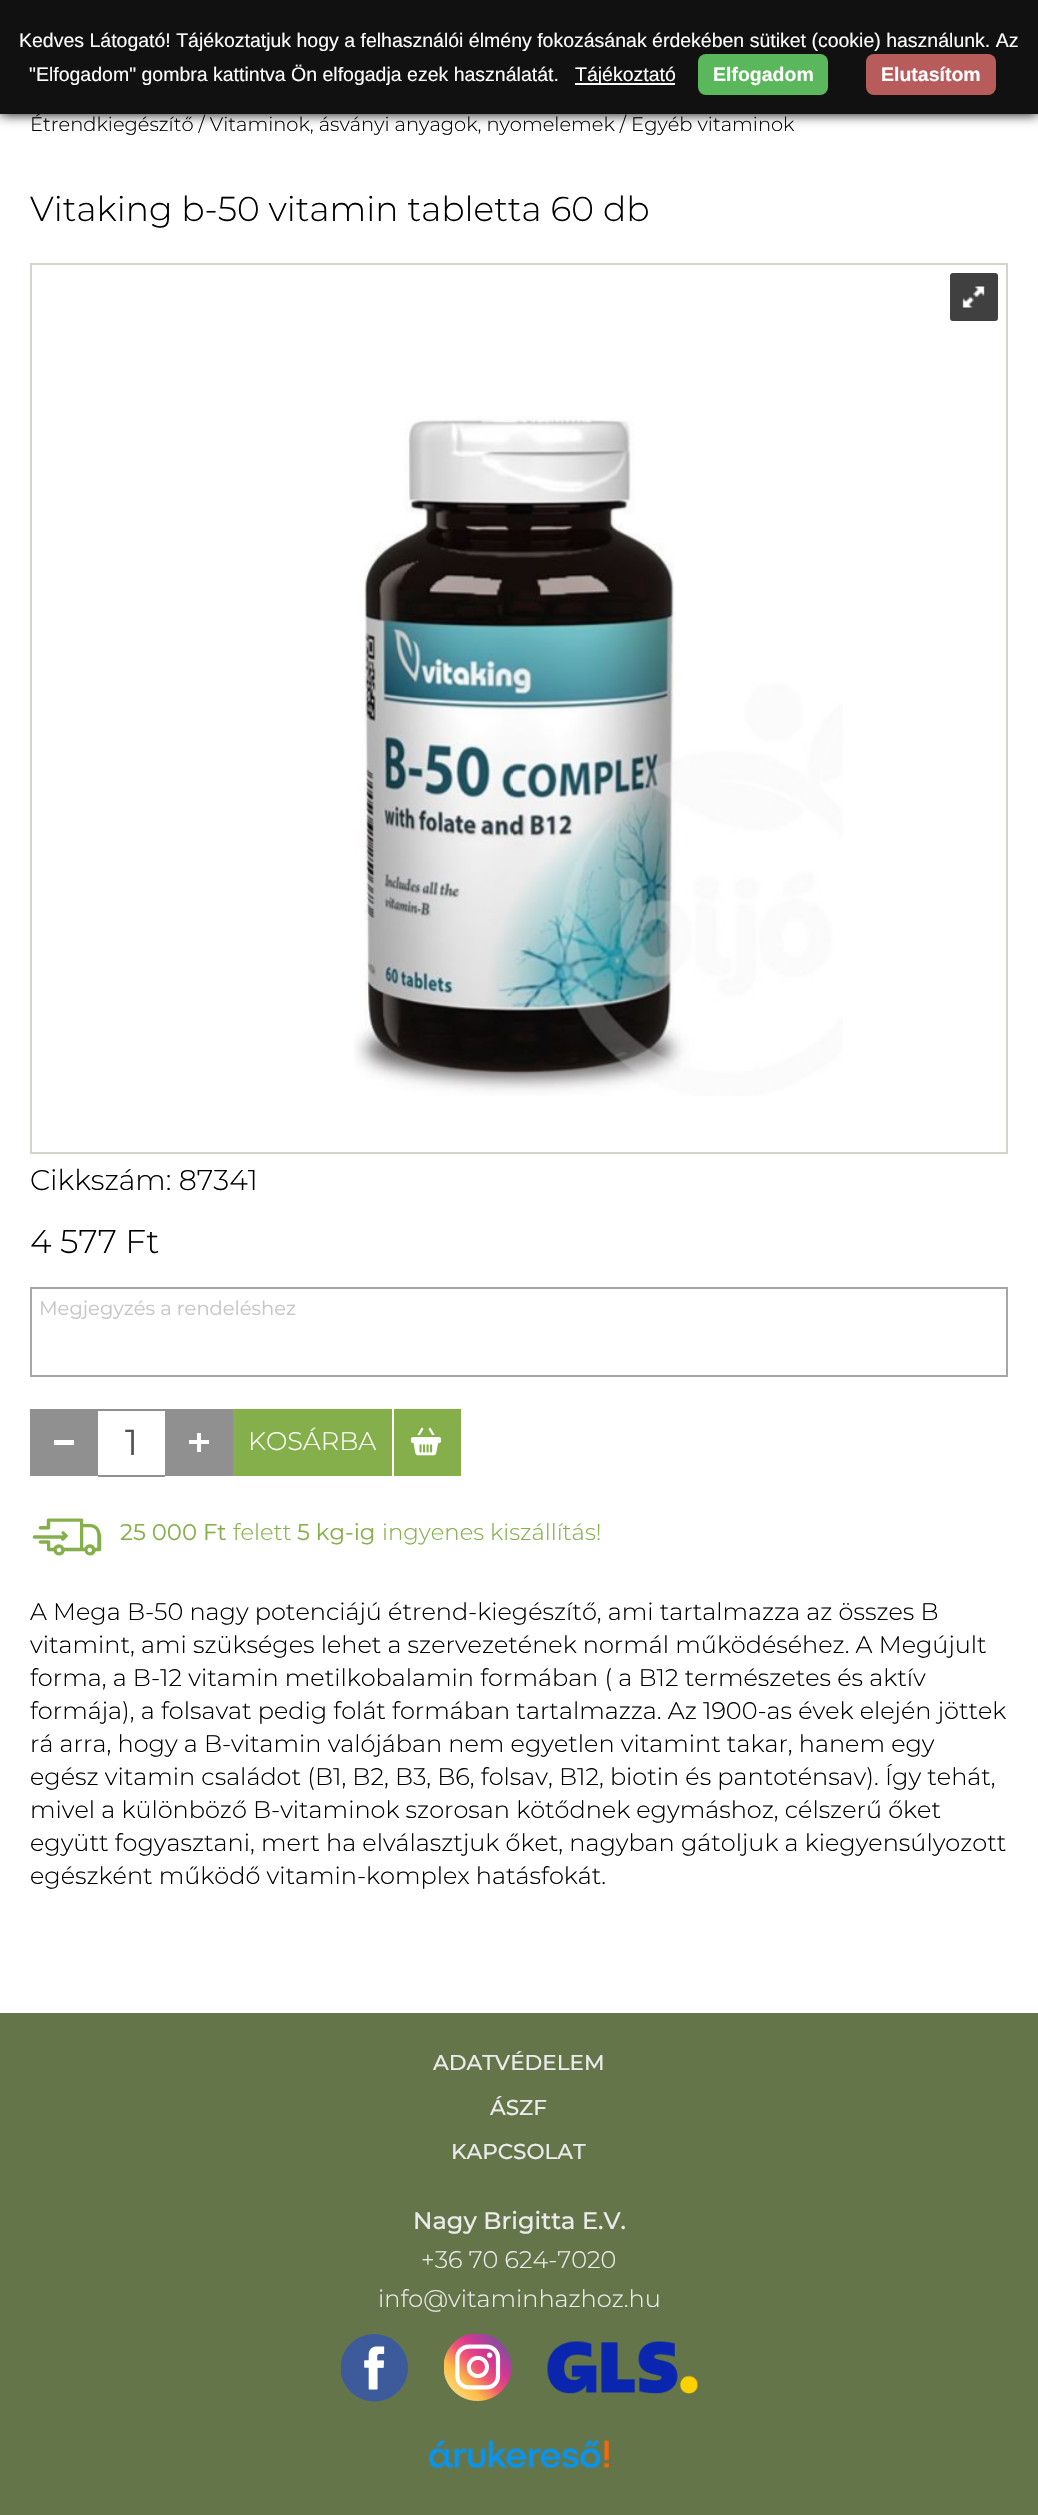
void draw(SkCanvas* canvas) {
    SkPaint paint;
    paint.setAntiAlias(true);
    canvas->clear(0xFFFFFFFF);
    paint.setColor(0xFF000000);
    paint.setMaskFilter(SkMaskFilter::MakeBlur(kNormal_SkBlurStyle, 6));
    canvas->drawRect(SkRect::MakeXYWH(0, 0, 1038, 114), paint);
    paint.setMaskFilter(nullptr);
    SkFont font1(fontMgr->matchFamilyStyle("Montserrat", SkFontStyle(300, SkFontStyle::kNormal_Width, SkFontStyle::kUpright_Slant)), 19.5f);
    font1.setSubpixel(true);
    canvas->drawString("Étrendkiegészítő / Vitaminok, ásványi anyagok, nyomelemek / Egyéb vitaminok", 30, 131, font1, paint);
    paint.setColor(0xFF111111);
    canvas->drawRect(SkRect::MakeXYWH(0, 0, 1038, 114), paint);
    SkFont font2(fontMgr->matchFamilyStyle("Liberation Sans", SkFontStyle::Normal()), 19.5f);
    font2.setSubpixel(true);
    paint.setColor(0xFFFFFFFF);
    canvas->drawString("Kedves Látogató! Tájékoztatjuk hogy a felhasználói élmény fokozásának érdekében sütiket (cookie) használunk. Az", 19, 47, font2, paint);
    canvas->drawString("\"Elfogadom\" gombra kattintva Ön elfogadja ezek használatát.", 29, 81, font2, paint);
    canvas->drawRect(SkRect::MakeXYWH(575, 83, 100, 2), paint);
    canvas->drawString("Tájékoztató", 575, 81, font2, paint);
    paint.setColor(0xFF5BB75B);
    canvas->drawRoundRect(SkRect::MakeXYWH(698, 54, 130, 41), 8, 8, paint);
    SkFont font3(fontMgr->matchFamilyStyle("Liberation Sans", SkFontStyle::Bold()), 19.5f);
    font3.setSubpixel(true);
    paint.setColor(0xFFFFFFFF);
    canvas->drawString("Elfogadom", 713, 81, font3, paint);
    paint.setColor(0xFFB75B5B);
    canvas->drawRoundRect(SkRect::MakeXYWH(866, 54, 130, 41), 8, 8, paint);
    paint.setColor(0xFFFFFFFF);
    canvas->drawString("Elutasítom", 881, 81, font3, paint);
    SkFont font4(fontMgr->matchFamilyStyle("Montserrat", SkFontStyle(300, SkFontStyle::kNormal_Width, SkFontStyle::kUpright_Slant)), 34.5f);
    font4.setSubpixel(true);
    paint.setColor(0xFF000000);
    canvas->drawString("Vitaking b-50 vitamin tabletta 60 db", 30, 221, font4, paint);
    paint.setStyle(SkPaint::kStroke_Style);
    paint.setStrokeWidth(2);
    paint.setColor(0xFFD6D3CB);
    canvas->drawRect(SkRect::MakeXYWH(31, 264, 976, 889), paint);
    paint.setStyle(SkPaint::kFill_Style);
    paint.setColor(0xFF404040);
    canvas->drawRoundRect(SkRect::MakeXYWH(950, 273, 48, 48), 3, 3, paint);
    canvas->drawImageRect(SkImages::DeferredFromEncodedData(SkData::MakeFromFileName("img1.png")), SkRect::MakeXYWH(962, 285, 23, 24), SkSamplingOptions());
    canvas->drawImageRect(SkImages::DeferredFromEncodedData(SkData::MakeFromFileName("img2.png")), SkRect::MakeXYWH(354, 416, 489, 680), SkSamplingOptions());
    SkFont font5(fontMgr->matchFamilyStyle("Montserrat", SkFontStyle(300, SkFontStyle::kNormal_Width, SkFontStyle::kUpright_Slant)), 28.5f);
    font5.setSubpixel(true);
    paint.setColor(0xFF000000);
    canvas->drawString("Cikkszám: 87341", 30, 1190, font5, paint);
    SkFont font6(fontMgr->matchFamilyStyle("Montserrat", SkFontStyle(300, SkFontStyle::kNormal_Width, SkFontStyle::kUpright_Slant)), 33);
    font6.setSubpixel(true);
    canvas->drawString("4 577 Ft", 30, 1253, font6, paint);
    paint.setStyle(SkPaint::kStroke_Style);
    paint.setColor(0xFFA5A5A5);
    canvas->drawRect(SkRect::MakeXYWH(31, 1288, 976, 88), paint);
    SkFont font7(fontMgr->matchFamilyStyle("Montserrat", SkFontStyle::Normal()), 19.5f);
    font7.setSubpixel(true);
    paint.setStyle(SkPaint::kFill_Style);
    paint.setColor(0xFFC6C6C6);
    canvas->drawString("Megjegyzés a rendeléshez", 39, 1315, font7, paint);
    paint.setColor(0xFF85AF4A);
    canvas->drawRect(SkRect::MakeXYWH(233, 1409, 228, 67), paint);
    paint.setColor(0xFF909090);
    canvas->drawRect(SkRect::MakeXYWH(30, 1409, 68, 67), paint);
    paint.setColor(0xFFFFFFFF);
    canvas->drawRect(SkRect::MakeXYWH(54, 1440, 20, 5), paint);
    paint.setColor(0xFF909090);
    canvas->drawRect(SkRect::MakeXYWH(98, 1409, 67, 2), paint);
    canvas->drawRect(SkRect::MakeXYWH(98, 1475, 67, 2), paint);
    SkFont font8(fontMgr->matchFamilyStyle("Montserrat", SkFontStyle::Normal()), 36);
    font8.setSubpixel(true);
    paint.setColor(0xFF525252);
    canvas->drawString("1", 125, 1455, font8, paint);
    paint.setColor(0xFF909090);
    canvas->drawRect(SkRect::MakeXYWH(165, 1409, 68, 67), paint);
    paint.setColor(0xFFFFFFFF);
    canvas->drawRect(SkRect::MakeXYWH(197, 1433, 4, 19), paint);
    canvas->drawRect(SkRect::MakeXYWH(189, 1440, 20, 4), paint);
    canvas->drawImageRect(SkImages::DeferredFromEncodedData(SkData::MakeFromFileName("img3.png")), SkRect::MakeXYWH(411, 1427, 30, 29), SkSamplingOptions());
    canvas->drawRect(SkRect::MakeXYWH(392, 1409, 2, 67), paint);
    SkFont font9(fontMgr->matchFamilyStyle("Montserrat", SkFontStyle(300, SkFontStyle::kNormal_Width, SkFontStyle::kUpright_Slant)), 25.5f);
    font9.setSubpixel(true);
    canvas->drawString("KOSÁRBA", 248, 1450, font9, paint);
    canvas->drawImageRect(SkImages::DeferredFromEncodedData(SkData::MakeFromFileName("img4.png")), SkRect::MakeXYWH(32, 1518, 70, 38), SkSamplingOptions());
    SkFont font10(fontMgr->matchFamilyStyle("Montserrat", SkFontStyle::Normal()), 22.75f);
    font10.setSubpixel(true);
    paint.setColor(0xFF85AF4A);
    canvas->drawString("25 000 Ft", 120, 1540, font10, paint);
    SkFont font11(fontMgr->matchFamilyStyle("Montserrat", SkFontStyle(300, SkFontStyle::kNormal_Width, SkFontStyle::kUpright_Slant)), 22.75f);
    font11.setSubpixel(true);
    canvas->drawString("felett", 233, 1540, font11, paint);
    canvas->drawString("5 kg-ig", 297, 1540, font10, paint);
    canvas->drawString("ingyenes kiszállítás!", 382, 1540, font11, paint);
    SkFont font12(fontMgr->matchFamilyStyle("Montserrat", SkFontStyle(300, SkFontStyle::kNormal_Width, SkFontStyle::kUpright_Slant)), 24);
    font12.setSubpixel(true);
    paint.setColor(0xFF000000);
    canvas->drawString("A Mega B-50 nagy potenciájú étrend-kiegészítő, ami tartalmazza az összes B", 30, 1620, font12, paint);
    canvas->drawString("vitamint, ami szükséges lehet a szervezetének normál működéséhez. A Megújult", 30, 1653, font12, paint);
    canvas->drawString("forma, a B-12 vitamin metilkobalamin formában ( a B12 természetes és aktív", 30, 1686, font12, paint);
    canvas->drawString("formája), a folsavat pedig folát formában tartalmazza. Az 1900-as évek elején jöttek", 30, 1719, font12, paint);
    canvas->drawString("rá arra, hogy a B-vitamin valójában nem egyetlen vitamint takar, hanem egy", 30, 1752, font12, paint);
    canvas->drawString("egész vitamin családot (B1, B2, B3, B6, folsav, B12, biotin és pantoténsav). Így tehát,", 30, 1785, font12, paint);
    canvas->drawString("mivel a különböző B-vitaminok szorosan kötődnek egymáshoz, célszerű őket", 30, 1818, font12, paint);
    canvas->drawString("együtt fogyasztani, mert ha elválasztjuk őket, nagyban gátoljuk a kiegyensúlyozott", 30, 1851, font12, paint);
    canvas->drawString("egészként működő vitamin-komplex hatásfokát.", 30, 1884, font12, paint);
    paint.setColor(0xFF647649);
    canvas->drawRect(SkRect::MakeXYWH(0, 2013, 1038, 502), paint);
    SkFont font13(fontMgr->matchFamilyStyle("Montserrat", SkFontStyle(500, SkFontStyle::kNormal_Width, SkFontStyle::kUpright_Slant)), 21.5f);
    font13.setSubpixel(true);
    paint.setColor(0xFFEBEBEB);
    canvas->drawString("ADATVÉDELEM", 433, 2070, font13, paint);
    canvas->drawString("ÁSZF", 490, 2115, font13, paint);
    canvas->drawString("KAPCSOLAT", 451, 2159, font13, paint);
    SkFont font14(fontMgr->matchFamilyStyle("Montserrat", SkFontStyle(500, SkFontStyle::kNormal_Width, SkFontStyle::kUpright_Slant)), 24);
    font14.setSubpixel(true);
    canvas->drawString("Nagy Brigitta E.V.", 413, 2229, font14, paint);
    canvas->drawString("+36 70 624-7020", 421, 2268, font12, paint);
    canvas->drawString("info@vitaminhazhoz.hu", 378, 2307, font12, paint);
    canvas->drawImageRect(SkImages::DeferredFromEncodedData(SkData::MakeFromFileName("img5.png")), SkRect::MakeXYWH(341, 2334, 67, 68), SkSamplingOptions());
    canvas->drawImageRect(SkImages::DeferredFromEncodedData(SkData::MakeFromFileName("img6.png")), SkRect::MakeXYWH(444, 2334, 68, 67), SkSamplingOptions());
    canvas->drawImageRect(SkImages::DeferredFromEncodedData(SkData::MakeFromFileName("img7.png")), SkRect::MakeXYWH(547, 2341, 151, 53), SkSamplingOptions());
    canvas->drawImageRect(SkImages::DeferredFromEncodedData(SkData::MakeFromFileName("img8.png")), SkRect::MakeXYWH(429, 2440, 180, 28), SkSamplingOptions());
}
